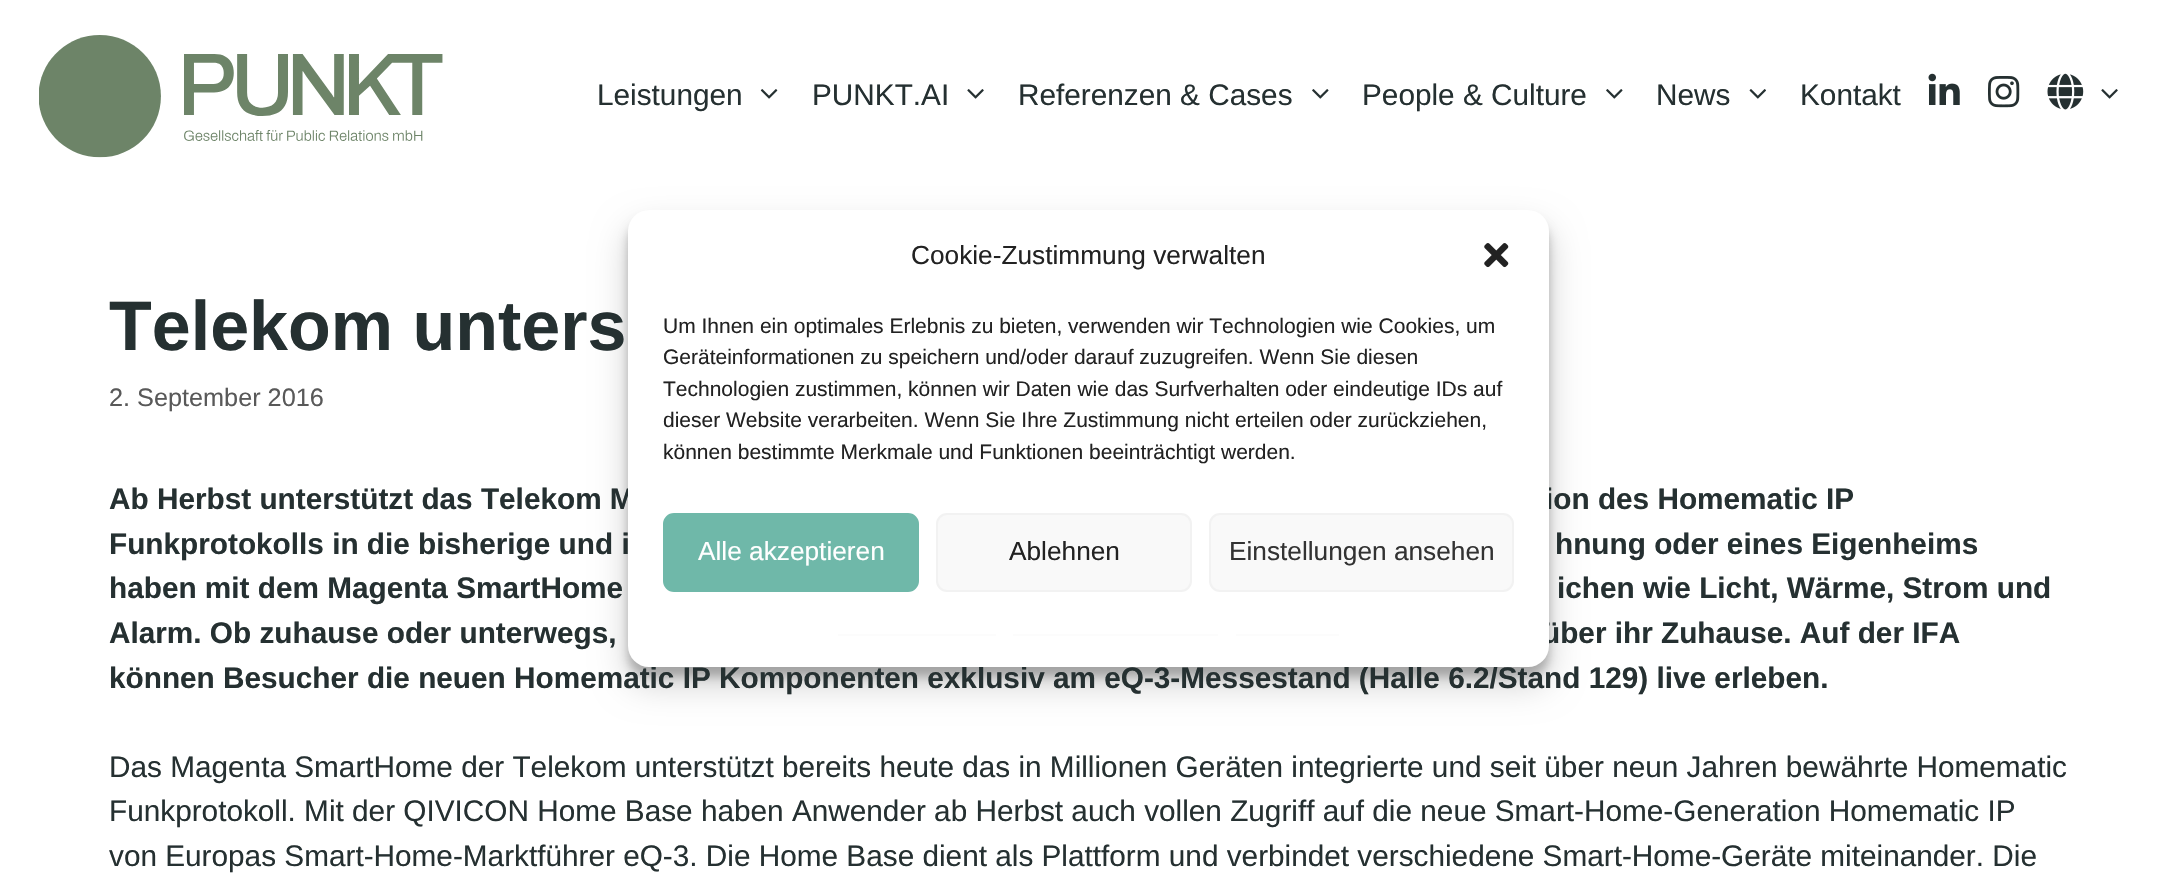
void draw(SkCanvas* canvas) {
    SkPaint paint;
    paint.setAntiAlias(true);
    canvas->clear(0xFFFFFFFF);
    canvas->drawImageRect(SkImages::DeferredFromEncodedData(SkData::MakeFromFileName("img1.png")), SkRect::MakeXYWH(39, 35, 404, 123), SkSamplingOptions());
    SkFont font1(fontMgr->matchFamilyStyle("Liberation Sans", SkFontStyle::Normal()), 29.75f);
    font1.setSubpixel(true);
    paint.setColor(0xFF253031);
    canvas->drawString("Leistungen", 597, 105, font1, paint);
    canvas->drawImageRect(SkImages::DeferredFromEncodedData(SkData::MakeFromFileName("img2.png")), SkRect::MakeXYWH(760, 89, 18, 10), SkSamplingOptions());
    canvas->drawString("PUNKT.AI", 812, 105, font1, paint);
    canvas->drawImageRect(SkImages::DeferredFromEncodedData(SkData::MakeFromFileName("img3.png")), SkRect::MakeXYWH(967, 89, 17, 10), SkSamplingOptions());
    canvas->drawString("Referenzen & Cases", 1018, 105, font1, paint);
    canvas->drawImageRect(SkImages::DeferredFromEncodedData(SkData::MakeFromFileName("img4.png")), SkRect::MakeXYWH(1312, 89, 17, 10), SkSamplingOptions());
    canvas->drawString("People & Culture", 1362, 105, font1, paint);
    canvas->drawImageRect(SkImages::DeferredFromEncodedData(SkData::MakeFromFileName("img4.png")), SkRect::MakeXYWH(1606, 89, 17, 10), SkSamplingOptions());
    canvas->drawString("News", 1656, 105, font1, paint);
    canvas->drawImageRect(SkImages::DeferredFromEncodedData(SkData::MakeFromFileName("img5.png")), SkRect::MakeXYWH(1749, 89, 17, 10), SkSamplingOptions());
    canvas->drawString("Kontakt", 1800, 105, font1, paint);
    canvas->drawImageRect(SkImages::DeferredFromEncodedData(SkData::MakeFromFileName("img6.png")), SkRect::MakeXYWH(1928, 73, 32, 32), SkSamplingOptions());
    canvas->drawImageRect(SkImages::DeferredFromEncodedData(SkData::MakeFromFileName("img7.png")), SkRect::MakeXYWH(1988, 76, 32, 32), SkSamplingOptions());
    canvas->drawImageRect(SkImages::DeferredFromEncodedData(SkData::MakeFromFileName("img8.png")), SkRect::MakeXYWH(2047, 73, 37, 37), SkSamplingOptions());
    canvas->drawImageRect(SkImages::DeferredFromEncodedData(SkData::MakeFromFileName("img3.png")), SkRect::MakeXYWH(2101, 89, 17, 10), SkSamplingOptions());
    paint.setColor(0x3B000000);
    paint.setMaskFilter(SkMaskFilter::MakeBlur(kNormal_SkBlurStyle, 5));
    canvas->drawRoundRect(SkRect::MakeXYWH(628, 221, 921, 456), 21, 21, paint);
    paint.setMaskFilter(nullptr);
    paint.setColor(0x30000000);
    paint.setMaskFilter(SkMaskFilter::MakeBlur(kNormal_SkBlurStyle, 17.5f));
    canvas->drawRoundRect(SkRect::MakeXYWH(628, 228, 921, 456), 21, 21, paint);
    paint.setMaskFilter(nullptr);
    SkFont font2(fontMgr->matchFamilyStyle("Liberation Sans", SkFontStyle::Bold()), 29.75f);
    font2.setSubpixel(true);
    paint.setColor(0xFF253031);
    canvas->drawString("Ab Herbst unterstützt das Telekom M", 109, 509, font2, paint);
    canvas->drawString("ion des Homematic IP", 1545, 509, font2, paint);
    canvas->drawString("über ihr Zuhause. Auf der IFA", 1542, 643, font2, paint);
    canvas->drawString("können Besucher die neuen Homematic IP Komponenten exklusiv am eQ-3-Messestand (Halle 6.2/Stand 129) live erleben.", 109, 688, font2, paint);
    paint.setColor(0xFFFFFFFF);
    canvas->drawRoundRect(SkRect::MakeXYWH(628, 210, 921, 457), 21, 21, paint);
    SkFont font3(fontMgr->matchFamilyStyle("Liberation Sans", SkFontStyle::Normal()), 26.25f);
    font3.setSubpixel(true);
    paint.setColor(0xFF222222);
    canvas->drawString("Cookie-Zustimmung verwalten", 911, 264, font3, paint);
    canvas->drawImageRect(SkImages::DeferredFromEncodedData(SkData::MakeFromFileName("img9.png")), SkRect::MakeXYWH(1484, 243, 25, 25), SkSamplingOptions());
    SkFont font4(fontMgr->matchFamilyStyle("Liberation Sans", SkFontStyle::Normal()), 21);
    font4.setSubpixel(true);
    canvas->drawString("Um Ihnen ein optimales Erlebnis zu bieten, verwenden wir Technologien wie Cookies, um", 663, 333, font4, paint);
    canvas->drawString("Geräteinformationen zu speichern und/oder darauf zuzugreifen. Wenn Sie diesen", 663, 364, font4, paint);
    canvas->drawString("Technologien zustimmen, können wir Daten wie das Surfverhalten oder eindeutige IDs auf", 663, 396, font4, paint);
    canvas->drawString("dieser Website verarbeiten. Wenn Sie Ihre Zustimmung nicht erteilen oder zurückziehen,", 663, 427, font4, paint);
    canvas->drawString("können bestimmte Merkmale und Funktionen beeinträchtigt werden.", 663, 459, font4, paint);
    paint.setColor(0xFF6FB8A9);
    canvas->drawRoundRect(SkRect::MakeXYWH(664, 514, 254, 77), 10, 10, paint);
    paint.setStyle(SkPaint::kStroke_Style);
    paint.setStrokeWidth(2);
    canvas->drawRoundRect(SkRect::MakeXYWH(664, 514, 254, 77), 10, 10, paint);
    paint.setStyle(SkPaint::kFill_Style);
    paint.setColor(0xFFFFFFFF);
    canvas->drawString("Alle akzeptieren", 698, 560, font3, paint);
    paint.setColor(0xFFF9F9F9);
    canvas->drawRoundRect(SkRect::MakeXYWH(937, 514, 254, 77), 10, 10, paint);
    paint.setStyle(SkPaint::kStroke_Style);
    paint.setColor(0xFFF2F2F2);
    canvas->drawRoundRect(SkRect::MakeXYWH(937, 514, 254, 77), 10, 10, paint);
    paint.setStyle(SkPaint::kFill_Style);
    paint.setColor(0xFF222222);
    canvas->drawString("Ablehnen", 1009, 560, font3, paint);
    paint.setColor(0xFFF9F9F9);
    canvas->drawRoundRect(SkRect::MakeXYWH(1210, 514, 303, 77), 10, 10, paint);
    paint.setStyle(SkPaint::kStroke_Style);
    paint.setColor(0xFFF2F2F2);
    canvas->drawRoundRect(SkRect::MakeXYWH(1210, 514, 303, 77), 10, 10, paint);
    paint.setStyle(SkPaint::kFill_Style);
    paint.setColor(0xFF333333);
    canvas->drawString("Einstellungen ansehen", 1229, 560, font3, paint);
    paint.setColor(0xFFFCFCFC);
    canvas->drawRect(SkRect::MakeXYWH(838, 634, 158, 2), paint);
    canvas->drawRect(SkRect::MakeXYWH(1013, 634, 205, 2), paint);
    canvas->drawRect(SkRect::MakeXYWH(1236, 634, 103, 2), paint);
    SkFont font5(fontMgr->matchFamilyStyle("Liberation Sans", SkFontStyle::Bold()), 70);
    font5.setSubpixel(true);
    paint.setColor(0xFF253031);
    canvas->drawString("Telekom unters", 109, 350, font5, paint);
    SkFont font6(fontMgr->matchFamilyStyle("Liberation Sans", SkFontStyle::Normal()), 25.25f);
    font6.setSubpixel(true);
    paint.setColor(0xFF595959);
    canvas->drawString("2. September 2016", 109, 406, font6, paint);
    paint.setColor(0xFF253031);
    canvas->drawString("Funkprotokolls in die bisherige und i", 109, 554, font2, paint);
    canvas->drawString("hnung oder eines Eigenheims", 1555, 554, font2, paint);
    canvas->drawString("haben mit dem Magenta SmartHome", 109, 598, font2, paint);
    canvas->drawString("ichen wie Licht, Wärme, Strom und", 1557, 598, font2, paint);
    canvas->drawString("Alarm. Ob zuhause oder unterwegs,", 109, 643, font2, paint);
    canvas->drawString("Das Magenta SmartHome der Telekom unterstützt bereits heute das in Millionen Geräten integrierte und seit über neun Jahren bewährte Homematic", 109, 777, font1, paint);
    canvas->drawString("Funkprotokoll. Mit der QIVICON Home Base haben Anwender ab Herbst auch vollen Zugriff auf die neue Smart-Home-Generation Homematic IP", 109, 821, font1, paint);
    canvas->drawString("von Europas Smart-Home-Marktführer eQ-3. Die Home Base dient als Plattform und verbindet verschiedene Smart-Home-Geräte miteinander. Die", 109, 866, font1, paint);
}
